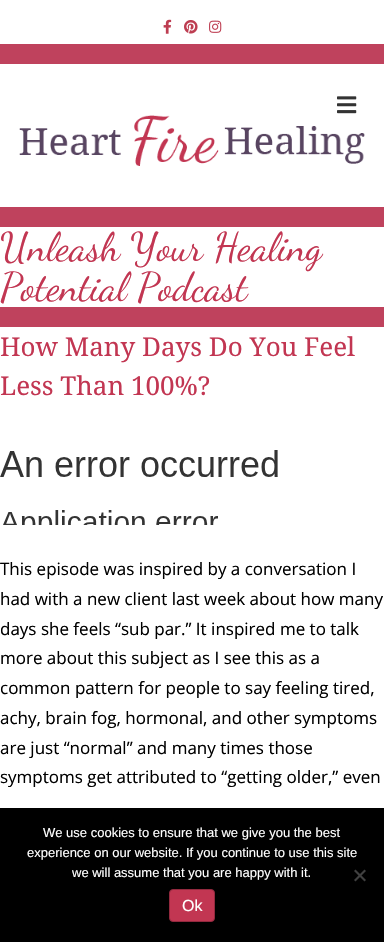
void draw(SkCanvas* canvas) {
    SkPaint paint;
    paint.setAntiAlias(true);
    canvas->clear(0xFFBF425D);
    paint.setColor(0xFFFFFFFF);
    canvas->drawRect(SkRect::MakeXYWH(0, 0, 384, 44), paint);
    canvas->drawImageRect(SkImages::DeferredFromEncodedData(SkData::MakeFromFileName("img1.png")), SkRect::MakeXYWH(163, 19, 9, 15), SkSamplingOptions());
    canvas->drawImageRect(SkImages::DeferredFromEncodedData(SkData::MakeFromFileName("img2.png")), SkRect::MakeXYWH(184, 20, 14, 14), SkSamplingOptions());
    canvas->drawImageRect(SkImages::DeferredFromEncodedData(SkData::MakeFromFileName("img3.png")), SkRect::MakeXYWH(209, 20, 13, 13), SkSamplingOptions());
    canvas->drawRect(SkRect::MakeXYWH(0, 64, 384, 143), paint);
    canvas->drawImageRect(SkImages::DeferredFromEncodedData(SkData::MakeFromFileName("img4.png")), SkRect::MakeXYWH(337, 96, 20, 18), SkSamplingOptions());
    canvas->drawImageRect(SkImages::DeferredFromEncodedData(SkData::MakeFromFileName("img5.png")), SkRect::MakeXYWH(19, 115, 346, 51), SkSamplingOptions());
    canvas->drawRect(SkRect::MakeXYWH(0, 227, 384, 80), paint);
    SkFont font1(fontMgr->matchFamilyStyle("Dancing Script", SkFontStyle::Normal()), 40);
    font1.setSubpixel(true);
    paint.setColor(0xFFC23652);
    canvas->drawString("Unleash Your Healing", 0, 260, font1, paint);
    canvas->drawString("Potential Podcast", 0, 300, font1, paint);
    paint.setColor(0xFFFFFFFF);
    canvas->drawRect(SkRect::MakeXYWH(0, 327, 384, 481), paint);
    SkFont font2(fontMgr->matchFamilyStyle("Noto Serif", SkFontStyle::Normal()), 26);
    font2.setSubpixel(true);
    paint.setColor(0xFFC23652);
    canvas->drawString("How Many Days Do You Feel", 0, 356, font2, paint);
    canvas->drawString("Less Than 100%?", 0, 395, font2, paint);
    canvas->drawImageRect(SkImages::DeferredFromEncodedData(SkData::MakeFromFileName("img6.png")), SkRect::MakeXYWH(0, 450, 278, 75), SkSamplingOptions());
    SkFont font3(fontMgr->matchFamilyStyle("Open Sans", SkFontStyle::Normal()), 17);
    font3.setSubpixel(true);
    paint.setColor(0xFF000000);
    canvas->drawString("This episode was inspired by a conversation I", 0, 575, font3, paint);
    canvas->drawString("had with a new client last week about how many", 0, 605, font3, paint);
    canvas->drawString("days she feels “sub par.” It inspired me to talk", 0, 635, font3, paint);
    canvas->drawString("more about this subject as I see this as a", 0, 664, font3, paint);
    canvas->drawString("common pattern for people to say feeling tired,", 0, 694, font3, paint);
    canvas->drawString("achy, brain fog, hormonal, and other symptoms", 0, 724, font3, paint);
    canvas->drawString("are just “normal” and many times those", 0, 754, font3, paint);
    canvas->drawString("symptoms get attributed to “getting older,” even", 0, 783, font3, paint);
    canvas->drawRect(SkRect::MakeXYWH(0, 808, 384, 134), paint);
    SkFont font4(fontMgr->matchFamilyStyle("Liberation Sans", SkFontStyle::Normal()), 13);
    font4.setSubpixel(true);
    paint.setColor(0xFFFFFFFF);
    canvas->drawString("We use cookies to ensure that we give you the best", 43, 837, font4, paint);
    canvas->drawString("experience on our website. If you continue to use this site", 27, 857, font4, paint);
    canvas->drawString("we will assume that you are happy with it.", 72, 877, font4, paint);
    paint.setColor(0xFF404040);
    canvas->drawPath(SkPathBuilder().moveTo(364.5f, 869.5f).lineTo(366, 871).lineTo(355.5f, 881.5f).lineTo(354, 880).close().detach(), paint);
    canvas->drawPath(SkPathBuilder().moveTo(354, 871).lineTo(355.5f, 869.5f).lineTo(366, 880).lineTo(364.5f, 881.5f).close().detach(), paint);
    paint.setColor(0xFFC23652);
    canvas->drawRoundRect(SkRect::MakeXYWH(169.5f, 889.5f, 45, 32), 3.5f, 3.5f, paint);
    paint.setStyle(SkPaint::kStroke_Style);
    paint.setStrokeWidth(1);
    paint.setColor(0xFF92293E);
    canvas->drawRoundRect(SkRect::MakeXYWH(169.5f, 889.5f, 45, 32), 3.5f, 3.5f, paint);
    SkFont font5(fontMgr->matchFamilyStyle("Liberation Sans", SkFontStyle::Normal()), 16);
    font5.setSubpixel(true);
    paint.setStyle(SkPaint::kFill_Style);
    paint.setColor(0xFFFFFFFF);
    canvas->drawString("Ok", 182, 911, font5, paint);
}
